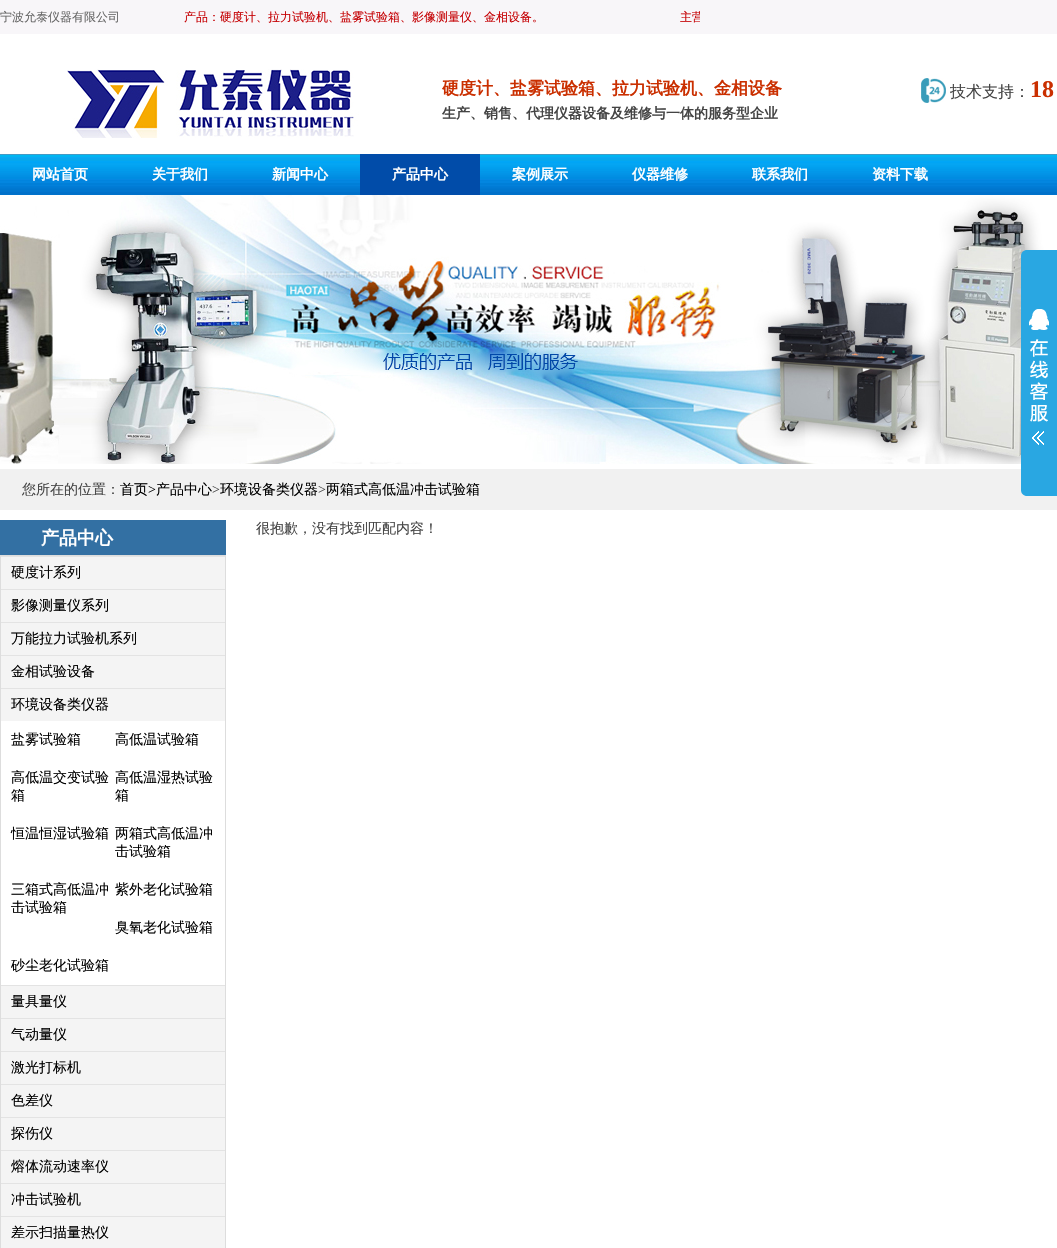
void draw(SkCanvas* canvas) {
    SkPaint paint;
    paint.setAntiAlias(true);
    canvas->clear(0xFFFFFFFF);
    paint.setColor(0xFFF8F6F9);
    canvas->drawRect(SkRect::MakeXYWH(0, 0, 1057, 34), paint);
    SkFont font1(fontMgr->matchFamilyStyle("WenQuanYi Zen Hei", SkFontStyle(500, SkFontStyle::kNormal_Width, SkFontStyle::kUpright_Slant)), 12);
    font1.setSubpixel(true);
    paint.setColor(0xFF666666);
    canvas->drawString("宁波允泰仪器有限公司", 0, 21, font1, paint);
    paint.setColor(0xFFC50003);
    canvas->drawString("产品：硬度计、拉力试验机、盐雾试验箱、影像测量仪、金相设备。", 184, 21, font1, paint);
    canvas->save();
    canvas->clipRect(SkRect::MakeXYWH(180, 0, 520, 34));
    canvas->drawString("主营", 680, 21, font1, paint);
    canvas->restore();
    canvas->drawImageRect(SkImages::DeferredFromEncodedData(SkData::MakeFromFileName("img1.png")), SkRect::MakeXYWH(67, 69, 292, 69), SkSamplingOptions());
    SkFont font2(fontMgr->matchFamilyStyle("WenQuanYi Zen Hei", SkFontStyle::Bold()), 17);
    font2.setSubpixel(true);
    paint.setColor(0xFFCA2F00);
    canvas->drawString("硬度计、盐雾试验箱、拉力试验机、金相设备", 442, 94, font2, paint);
    SkFont font3(fontMgr->matchFamilyStyle("WenQuanYi Zen Hei", SkFontStyle::Bold()), 14);
    font3.setSubpixel(true);
    paint.setColor(0xFF444444);
    canvas->drawString("生产、销售、代理仪器设备及维修与一体的服务型企业", 442, 118, font3, paint);
    canvas->drawImageRect(SkImages::DeferredFromEncodedData(SkData::MakeFromFileName("img2.png")), SkRect::MakeXYWH(921, 78, 25, 25), SkSamplingOptions());
    SkFont font4(fontMgr->matchFamilyStyle("WenQuanYi Zen Hei", SkFontStyle(500, SkFontStyle::kNormal_Width, SkFontStyle::kUpright_Slant)), 16);
    font4.setSubpixel(true);
    canvas->drawString("技术支持：", 950, 97, font4, paint);
    SkFont font5(fontMgr->matchFamilyStyle("Liberation Serif", SkFontStyle::Bold()), 24);
    font5.setSubpixel(true);
    paint.setColor(0xFFCA2F00);
    canvas->drawString("18", 1030, 97, font5, paint);
    canvas->drawImageRect(SkImages::DeferredFromEncodedData(SkData::MakeFromFileName("img3.png")), SkRect::MakeXYWH(0, 154, 1057, 41), SkSamplingOptions());
    paint.setColor(0xFFFFFFFF);
    canvas->drawString("网站首页", 32, 179, font3, paint);
    canvas->drawString("关于我们", 152, 179, font3, paint);
    canvas->drawString("新闻中心", 272, 179, font3, paint);
    paint.setColor(0xFF014CA9);
    canvas->drawRect(SkRect::MakeXYWH(360, 154, 120, 41), paint);
    paint.setColor(0xFFFFFFFF);
    canvas->drawString("产品中心", 392, 179, font3, paint);
    canvas->drawString("案例展示", 512, 179, font3, paint);
    canvas->drawString("仪器维修", 632, 179, font3, paint);
    canvas->drawString("联系我们", 752, 179, font3, paint);
    canvas->drawString("资料下载", 872, 179, font3, paint);
    canvas->drawImageRect(SkImages::DeferredFromEncodedData(SkData::MakeFromFileName("img4.png")), SkRect::MakeXYWH(0, 195, 1057, 269), SkSamplingOptions());
    paint.setColor(0xFFF1F1F1);
    canvas->drawRect(SkRect::MakeXYWH(0, 469, 1057, 41), paint);
    SkFont font6(fontMgr->matchFamilyStyle("WenQuanYi Zen Hei", SkFontStyle(500, SkFontStyle::kNormal_Width, SkFontStyle::kUpright_Slant)), 14);
    font6.setSubpixel(true);
    paint.setColor(0xFF444444);
    canvas->drawString("您所在的位置：", 22, 494, font6, paint);
    paint.setColor(0xFF000000);
    canvas->drawString("首页", 120, 494, font6, paint);
    SkFont font7(fontMgr->matchFamilyStyle("Liberation Serif", SkFontStyle::Normal()), 14);
    font7.setSubpixel(true);
    canvas->drawString(">", 148, 494, font7, paint);
    canvas->drawString("产品中心", 156, 494, font6, paint);
    paint.setColor(0xFF444444);
    canvas->drawString(">", 212, 494, font7, paint);
    paint.setColor(0xFF000000);
    canvas->drawString("环境设备类仪器", 220, 494, font6, paint);
    paint.setColor(0xFF444444);
    canvas->drawString(">", 318, 494, font7, paint);
    paint.setColor(0xFF000000);
    canvas->drawString("两箱式高低温冲击试验箱", 326, 494, font6, paint);
    paint.setColor(0xFF29A7E2);
    canvas->drawPath(SkPathBuilder().moveTo(1027, 250).lineTo(1057, 250).lineTo(1057, 496).lineTo(1027, 496).cubicTo(1023.5f, 496, 1021, 493.5f, 1021, 490).lineTo(1021, 256).cubicTo(1021, 252.5f, 1023.5f, 250, 1027, 250).close().detach(), paint);
    canvas->drawImageRect(SkImages::DeferredFromEncodedData(SkData::MakeFromFileName("img5.png")), SkRect::MakeXYWH(1029, 309, 20, 136), SkSamplingOptions());
    paint.setColor(0xFF3370A3);
    canvas->drawRect(SkRect::MakeXYWH(0, 520, 226, 35), paint);
    SkFont font8(fontMgr->matchFamilyStyle("WenQuanYi Zen Hei", SkFontStyle::Bold()), 18);
    font8.setSubpixel(true);
    paint.setColor(0xFFFFFFFF);
    canvas->drawString("产品中心", 41, 544, font8, paint);
    paint.setStyle(SkPaint::kStroke_Style);
    paint.setStrokeWidth(1);
    paint.setColor(0xFFDDDDDD);
    canvas->drawRect(SkRect::MakeXYWH(0.5f, 555.5f, 225, 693), paint);
    paint.setStyle(SkPaint::kFill_Style);
    paint.setColor(0xFFF4F4F4);
    canvas->drawRect(SkRect::MakeXYWH(1, 557, 224, 32), paint);
    paint.setColor(0xFFE3E3E3);
    canvas->drawRect(SkRect::MakeXYWH(1, 556, 224, 1), paint);
    paint.setColor(0xFF000000);
    canvas->drawString("硬度计系列", 11, 577, font6, paint);
    paint.setColor(0xFFF4F4F4);
    canvas->drawRect(SkRect::MakeXYWH(1, 590, 224, 32), paint);
    paint.setColor(0xFFE3E3E3);
    canvas->drawRect(SkRect::MakeXYWH(1, 589, 224, 1), paint);
    paint.setColor(0xFF000000);
    canvas->drawString("影像测量仪系列", 11, 610, font6, paint);
    paint.setColor(0xFFF4F4F4);
    canvas->drawRect(SkRect::MakeXYWH(1, 623, 224, 32), paint);
    paint.setColor(0xFFE3E3E3);
    canvas->drawRect(SkRect::MakeXYWH(1, 622, 224, 1), paint);
    paint.setColor(0xFF000000);
    canvas->drawString("万能拉力试验机系列", 11, 643, font6, paint);
    paint.setColor(0xFFF4F4F4);
    canvas->drawRect(SkRect::MakeXYWH(1, 656, 224, 32), paint);
    paint.setColor(0xFFE3E3E3);
    canvas->drawRect(SkRect::MakeXYWH(1, 655, 224, 1), paint);
    paint.setColor(0xFF000000);
    canvas->drawString("金相试验设备", 11, 676, font6, paint);
    paint.setColor(0xFFF4F4F4);
    canvas->drawRect(SkRect::MakeXYWH(1, 689, 224, 32), paint);
    paint.setColor(0xFFE3E3E3);
    canvas->drawRect(SkRect::MakeXYWH(1, 688, 224, 1), paint);
    paint.setColor(0xFF000000);
    canvas->drawString("环境设备类仪器", 11, 709, font6, paint);
    canvas->drawString("盐雾试验箱", 11, 744, font6, paint);
    canvas->drawString("高低温试验箱", 115, 744, font6, paint);
    canvas->drawString("高低温交变试验", 11, 782, font6, paint);
    canvas->drawString("箱", 11, 800, font6, paint);
    canvas->drawString("高低温湿热试验", 115, 782, font6, paint);
    canvas->drawString("箱", 115, 800, font6, paint);
    canvas->drawString("恒温恒湿试验箱", 11, 838, font6, paint);
    canvas->drawString("两箱式高低温冲", 115, 838, font6, paint);
    canvas->drawString("击试验箱", 115, 856, font6, paint);
    canvas->drawString("三箱式高低温冲", 11, 894, font6, paint);
    canvas->drawString("击试验箱", 11, 912, font6, paint);
    canvas->drawString("紫外老化试验箱", 115, 894, font6, paint);
    canvas->drawString("臭氧老化试验箱", 115, 932, font6, paint);
    canvas->drawString("砂尘老化试验箱", 11, 970, font6, paint);
    paint.setColor(0xFFF4F4F4);
    canvas->drawRect(SkRect::MakeXYWH(1, 986, 224, 32), paint);
    paint.setColor(0xFFE3E3E3);
    canvas->drawRect(SkRect::MakeXYWH(1, 985, 224, 1), paint);
    paint.setColor(0xFF000000);
    canvas->drawString("量具量仪", 11, 1006, font6, paint);
    paint.setColor(0xFFF4F4F4);
    canvas->drawRect(SkRect::MakeXYWH(1, 1019, 224, 32), paint);
    paint.setColor(0xFFE3E3E3);
    canvas->drawRect(SkRect::MakeXYWH(1, 1018, 224, 1), paint);
    paint.setColor(0xFF000000);
    canvas->drawString("气动量仪", 11, 1039, font6, paint);
    paint.setColor(0xFFF4F4F4);
    canvas->drawRect(SkRect::MakeXYWH(1, 1052, 224, 32), paint);
    paint.setColor(0xFFE3E3E3);
    canvas->drawRect(SkRect::MakeXYWH(1, 1051, 224, 1), paint);
    paint.setColor(0xFF000000);
    canvas->drawString("激光打标机", 11, 1072, font6, paint);
    paint.setColor(0xFFF4F4F4);
    canvas->drawRect(SkRect::MakeXYWH(1, 1085, 224, 32), paint);
    paint.setColor(0xFFE3E3E3);
    canvas->drawRect(SkRect::MakeXYWH(1, 1084, 224, 1), paint);
    paint.setColor(0xFF000000);
    canvas->drawString("色差仪", 11, 1105, font6, paint);
    paint.setColor(0xFFF4F4F4);
    canvas->drawRect(SkRect::MakeXYWH(1, 1118, 224, 32), paint);
    paint.setColor(0xFFE3E3E3);
    canvas->drawRect(SkRect::MakeXYWH(1, 1117, 224, 1), paint);
    paint.setColor(0xFF000000);
    canvas->drawString("探伤仪", 11, 1138, font6, paint);
    paint.setColor(0xFFF4F4F4);
    canvas->drawRect(SkRect::MakeXYWH(1, 1151, 224, 32), paint);
    paint.setColor(0xFFE3E3E3);
    canvas->drawRect(SkRect::MakeXYWH(1, 1150, 224, 1), paint);
    paint.setColor(0xFF000000);
    canvas->drawString("熔体流动速率仪", 11, 1171, font6, paint);
    paint.setColor(0xFFF4F4F4);
    canvas->drawRect(SkRect::MakeXYWH(1, 1184, 224, 32), paint);
    paint.setColor(0xFFE3E3E3);
    canvas->drawRect(SkRect::MakeXYWH(1, 1183, 224, 1), paint);
    paint.setColor(0xFF000000);
    canvas->drawString("冲击试验机", 11, 1204, font6, paint);
    paint.setColor(0xFFF4F4F4);
    canvas->drawRect(SkRect::MakeXYWH(1, 1217, 224, 31), paint);
    paint.setColor(0xFFE3E3E3);
    canvas->drawRect(SkRect::MakeXYWH(1, 1216, 224, 1), paint);
    paint.setColor(0xFF000000);
    canvas->drawString("差示扫描量热仪", 11, 1237, font6, paint);
    paint.setColor(0xFF444444);
    canvas->drawString("很抱歉，没有找到匹配内容！", 256, 533, font6, paint);
}
